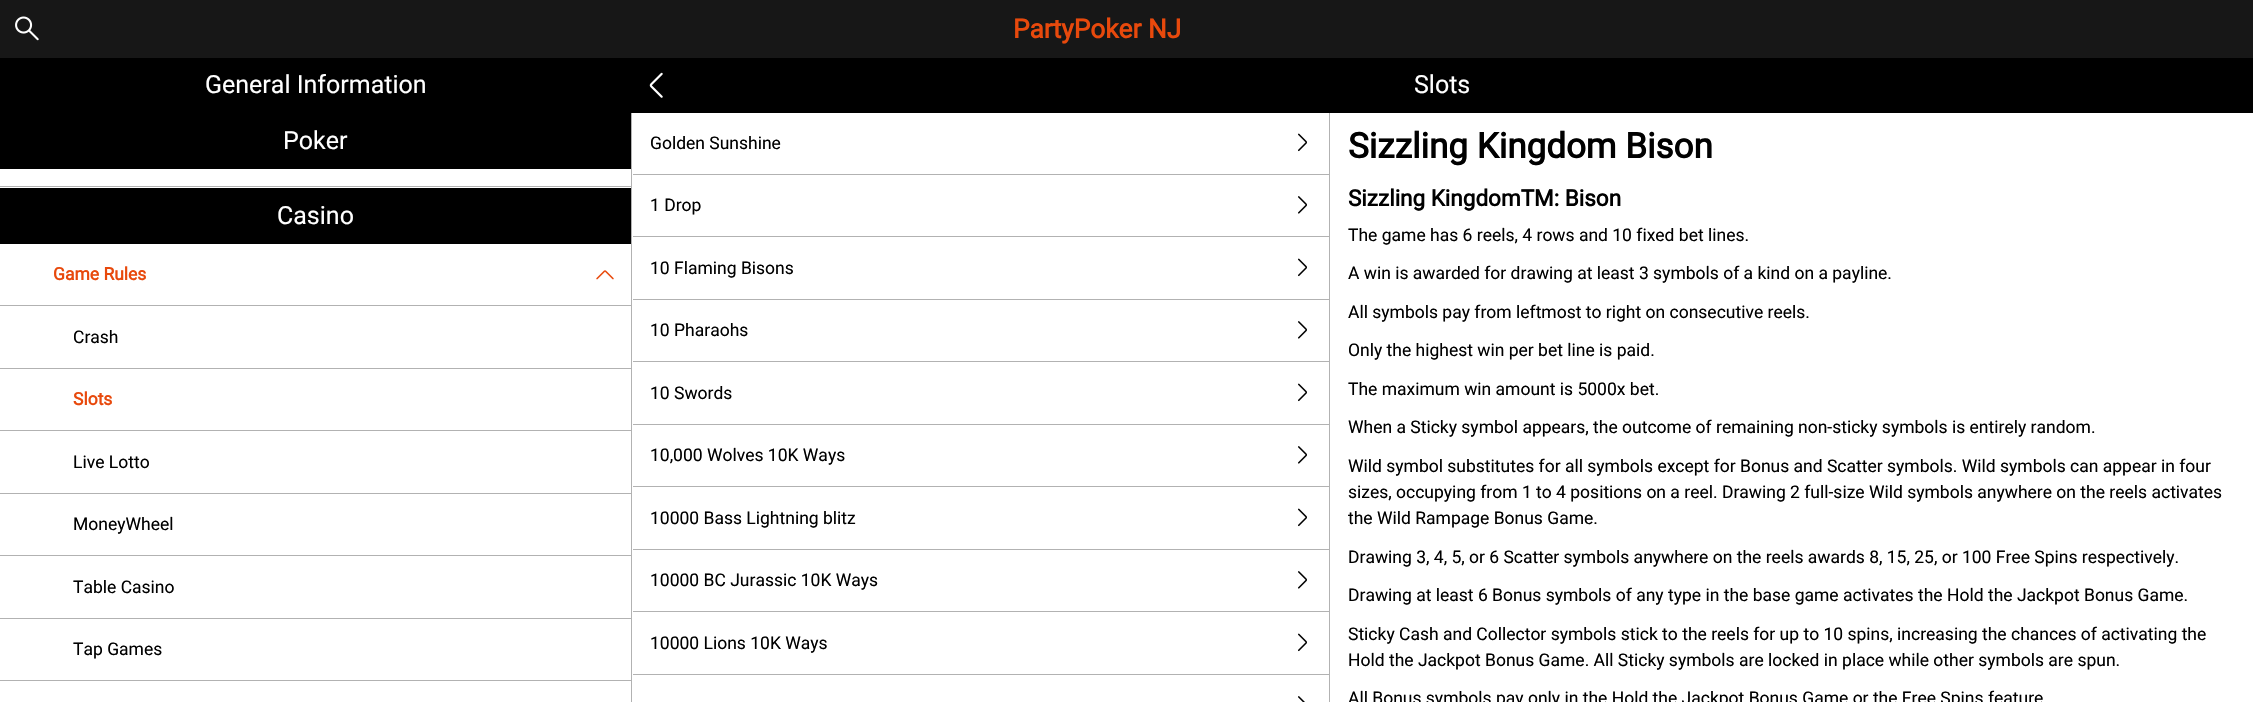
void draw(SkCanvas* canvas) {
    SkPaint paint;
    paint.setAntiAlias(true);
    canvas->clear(0xFFFFFFFF);
    paint.setColor(0xFF171717);
    canvas->drawRect(SkRect::MakeXYWH(0, 0, 2253, 58), paint);
    canvas->drawImageRect(SkImages::DeferredFromEncodedData(SkData::MakeFromFileName("img1.png")), SkRect::MakeXYWH(15, 16, 24, 25), SkSamplingOptions());
    SkFont font1(fontMgr->matchFamilyStyle("Roboto", SkFontStyle::Bold()), 26.25f);
    font1.setSubpixel(true);
    paint.setColor(0xFFE8490C);
    canvas->drawString("PartyPoker NJ", 1013, 38, font1, paint);
    paint.setColor(0xFF000000);
    canvas->drawRect(SkRect::MakeXYWH(0, 58, 631, 111), paint);
    SkFont font2(fontMgr->matchFamilyStyle("Roboto", SkFontStyle::Normal()), 25);
    font2.setSubpixel(true);
    paint.setColor(0xFFFFFFFF);
    canvas->drawString("General Information", 205, 93, font2, paint);
    canvas->drawString("Poker", 283, 149, font2, paint);
    paint.setColor(0xFFB2B2B2);
    canvas->drawRect(SkRect::MakeXYWH(0, 186, 631, 1), paint);
    paint.setColor(0xFF000000);
    canvas->drawRect(SkRect::MakeXYWH(0, 188, 631, 56), paint);
    paint.setColor(0xFFFFFFFF);
    canvas->drawString("Casino", 277, 224, font2, paint);
    SkFont font3(fontMgr->matchFamilyStyle("Roboto", SkFontStyle::Bold()), 17.5f);
    font3.setSubpixel(true);
    paint.setColor(0xFFE8490C);
    canvas->drawString("Game Rules", 53, 280, font3, paint);
    canvas->drawImageRect(SkImages::DeferredFromEncodedData(SkData::MakeFromFileName("img2.png")), SkRect::MakeXYWH(596, 270, 18, 10), SkSamplingOptions());
    paint.setColor(0xFFB2B2B2);
    canvas->drawRect(SkRect::MakeXYWH(0, 305, 631, 1), paint);
    canvas->drawRect(SkRect::MakeXYWH(0, 368, 631, 1), paint);
    SkFont font4(fontMgr->matchFamilyStyle("Roboto", SkFontStyle::Normal()), 17.5f);
    font4.setSubpixel(true);
    paint.setColor(0xFF000000);
    canvas->drawString("Crash", 73, 343, font4, paint);
    paint.setColor(0xFFB2B2B2);
    canvas->drawRect(SkRect::MakeXYWH(0, 430, 631, 1), paint);
    paint.setColor(0xFFE8490C);
    canvas->drawString("Slots", 73, 405, font3, paint);
    paint.setColor(0xFFB2B2B2);
    canvas->drawRect(SkRect::MakeXYWH(0, 493, 631, 1), paint);
    paint.setColor(0xFF000000);
    canvas->drawString("Live Lotto", 73, 468, font4, paint);
    paint.setColor(0xFFB2B2B2);
    canvas->drawRect(SkRect::MakeXYWH(0, 555, 631, 1), paint);
    paint.setColor(0xFF000000);
    canvas->drawString("MoneyWheel", 73, 530, font4, paint);
    paint.setColor(0xFFB2B2B2);
    canvas->drawRect(SkRect::MakeXYWH(0, 618, 631, 1), paint);
    paint.setColor(0xFF000000);
    canvas->drawString("Table Casino", 73, 593, font4, paint);
    paint.setColor(0xFFB2B2B2);
    canvas->drawRect(SkRect::MakeXYWH(0, 680, 631, 1), paint);
    paint.setColor(0xFF000000);
    canvas->drawString("Tap Games", 73, 655, font4, paint);
    canvas->drawRect(SkRect::MakeXYWH(631, 58, 1622, 55), paint);
    canvas->drawImageRect(SkImages::DeferredFromEncodedData(SkData::MakeFromFileName("img3.png")), SkRect::MakeXYWH(649, 72, 14, 26), SkSamplingOptions());
    paint.setColor(0xFFFFFFFF);
    canvas->drawString("Slots", 1414, 93, font2, paint);
    paint.setColor(0xFFB2B2B2);
    canvas->drawRect(SkRect::MakeXYWH(631, 113, 1, 589), paint);
    canvas->drawRect(SkRect::MakeXYWH(1329, 113, 1, 589), paint);
    canvas->drawRect(SkRect::MakeXYWH(633, 174, 696, 1), paint);
    paint.setColor(0xFF000000);
    canvas->drawString("Golden Sunshine", 650, 149, font4, paint);
    canvas->drawImageRect(SkImages::DeferredFromEncodedData(SkData::MakeFromFileName("img4.png")), SkRect::MakeXYWH(1298, 133, 9, 19), SkSamplingOptions());
    paint.setColor(0xFFB2B2B2);
    canvas->drawRect(SkRect::MakeXYWH(633, 236, 696, 1), paint);
    paint.setColor(0xFF000000);
    canvas->drawString("1 Drop", 650, 211, font4, paint);
    canvas->drawImageRect(SkImages::DeferredFromEncodedData(SkData::MakeFromFileName("img5.png")), SkRect::MakeXYWH(1298, 196, 9, 18), SkSamplingOptions());
    paint.setColor(0xFFB2B2B2);
    canvas->drawRect(SkRect::MakeXYWH(633, 299, 696, 1), paint);
    paint.setColor(0xFF000000);
    canvas->drawString("10 Flaming Bisons", 650, 274, font4, paint);
    canvas->drawImageRect(SkImages::DeferredFromEncodedData(SkData::MakeFromFileName("img4.png")), SkRect::MakeXYWH(1298, 258, 9, 19), SkSamplingOptions());
    paint.setColor(0xFFB2B2B2);
    canvas->drawRect(SkRect::MakeXYWH(633, 361, 696, 1), paint);
    paint.setColor(0xFF000000);
    canvas->drawString("10 Pharaohs", 650, 336, font4, paint);
    canvas->drawImageRect(SkImages::DeferredFromEncodedData(SkData::MakeFromFileName("img5.png")), SkRect::MakeXYWH(1298, 321, 9, 18), SkSamplingOptions());
    paint.setColor(0xFFB2B2B2);
    canvas->drawRect(SkRect::MakeXYWH(633, 424, 696, 1), paint);
    paint.setColor(0xFF000000);
    canvas->drawString("10 Swords", 650, 399, font4, paint);
    canvas->drawImageRect(SkImages::DeferredFromEncodedData(SkData::MakeFromFileName("img4.png")), SkRect::MakeXYWH(1298, 383, 9, 19), SkSamplingOptions());
    paint.setColor(0xFFB2B2B2);
    canvas->drawRect(SkRect::MakeXYWH(633, 486, 696, 1), paint);
    paint.setColor(0xFF000000);
    canvas->drawString("10,000 Wolves 10K Ways", 650, 461, font4, paint);
    canvas->drawImageRect(SkImages::DeferredFromEncodedData(SkData::MakeFromFileName("img5.png")), SkRect::MakeXYWH(1298, 446, 9, 18), SkSamplingOptions());
    paint.setColor(0xFFB2B2B2);
    canvas->drawRect(SkRect::MakeXYWH(633, 549, 696, 1), paint);
    paint.setColor(0xFF000000);
    canvas->drawString("10000 Bass Lightning blitz", 650, 524, font4, paint);
    canvas->drawImageRect(SkImages::DeferredFromEncodedData(SkData::MakeFromFileName("img4.png")), SkRect::MakeXYWH(1298, 508, 9, 19), SkSamplingOptions());
    paint.setColor(0xFFB2B2B2);
    canvas->drawRect(SkRect::MakeXYWH(633, 611, 696, 1), paint);
    paint.setColor(0xFF000000);
    canvas->drawString("10000 BC Jurassic 10K Ways", 650, 586, font4, paint);
    canvas->drawImageRect(SkImages::DeferredFromEncodedData(SkData::MakeFromFileName("img5.png")), SkRect::MakeXYWH(1298, 571, 9, 18), SkSamplingOptions());
    paint.setColor(0xFFB2B2B2);
    canvas->drawRect(SkRect::MakeXYWH(633, 674, 696, 1), paint);
    paint.setColor(0xFF000000);
    canvas->drawString("10000 Lions 10K Ways", 650, 649, font4, paint);
    canvas->drawImageRect(SkImages::DeferredFromEncodedData(SkData::MakeFromFileName("img4.png")), SkRect::MakeXYWH(1298, 633, 9, 19), SkSamplingOptions());
    canvas->drawImageRect(SkImages::DeferredFromEncodedData(SkData::MakeFromFileName("img6.png")), SkRect::MakeXYWH(1298, 696, 7, 6), SkSamplingOptions());
    SkFont font5(fontMgr->matchFamilyStyle("Roboto", SkFontStyle::Bold()), 35);
    font5.setSubpixel(true);
    canvas->drawString("Sizzling Kingdom Bison", 1348, 158, font5, paint);
    SkFont font6(fontMgr->matchFamilyStyle("Roboto", SkFontStyle::Bold()), 22.5f);
    font6.setSubpixel(true);
    canvas->drawString("Sizzling KingdomTM: Bison", 1348, 206, font6, paint);
    canvas->drawString("The game has 6 reels, 4 rows and 10 fixed bet lines.", 1348, 241, font4, paint);
    canvas->drawString("A win is awarded for drawing at least 3 symbols of a kind on a payline.", 1348, 279, font4, paint);
    canvas->drawString("All symbols pay from leftmost to right on consecutive reels.", 1348, 318, font4, paint);
    canvas->drawString("Only the highest win per bet line is paid.", 1348, 356, font4, paint);
    canvas->drawString("The maximum win amount is 5000x bet.", 1348, 395, font4, paint);
    canvas->drawString("When a Sticky symbol appears, the outcome of remaining non-sticky symbols is entirely random.", 1348, 433, font4, paint);
    canvas->drawString("Wild symbol substitutes for all symbols except for Bonus and Scatter symbols. Wild symbols can appear in four", 1348, 472, font4, paint);
    canvas->drawString("sizes, occupying from 1 to 4 positions on a reel. Drawing 2 full-size Wild symbols anywhere on the reels activates", 1348, 498, font4, paint);
    canvas->drawString("the Wild Rampage Bonus Game.", 1348, 524, font4, paint);
    canvas->drawString("Drawing 3, 4, 5, or 6 Scatter symbols anywhere on the reels awards 8, 15, 25, or 100 Free Spins respectively.", 1348, 563, font4, paint);
    canvas->drawString("Drawing at least 6 Bonus symbols of any type in the base game activates the Hold the Jackpot Bonus Game.", 1348, 601, font4, paint);
    canvas->drawString("Sticky Cash and Collector symbols stick to the reels for up to 10 spins, increasing the chances of activating the", 1348, 640, font4, paint);
    canvas->drawString("Hold the Jackpot Bonus Game. All Sticky symbols are locked in place while other symbols are spun.", 1348, 666, font4, paint);
    canvas->drawString("All Bonus symbols pay only in the Hold the Jackpot Bonus Game or the Free Spins feature", 1348, 704, font4, paint);
}
